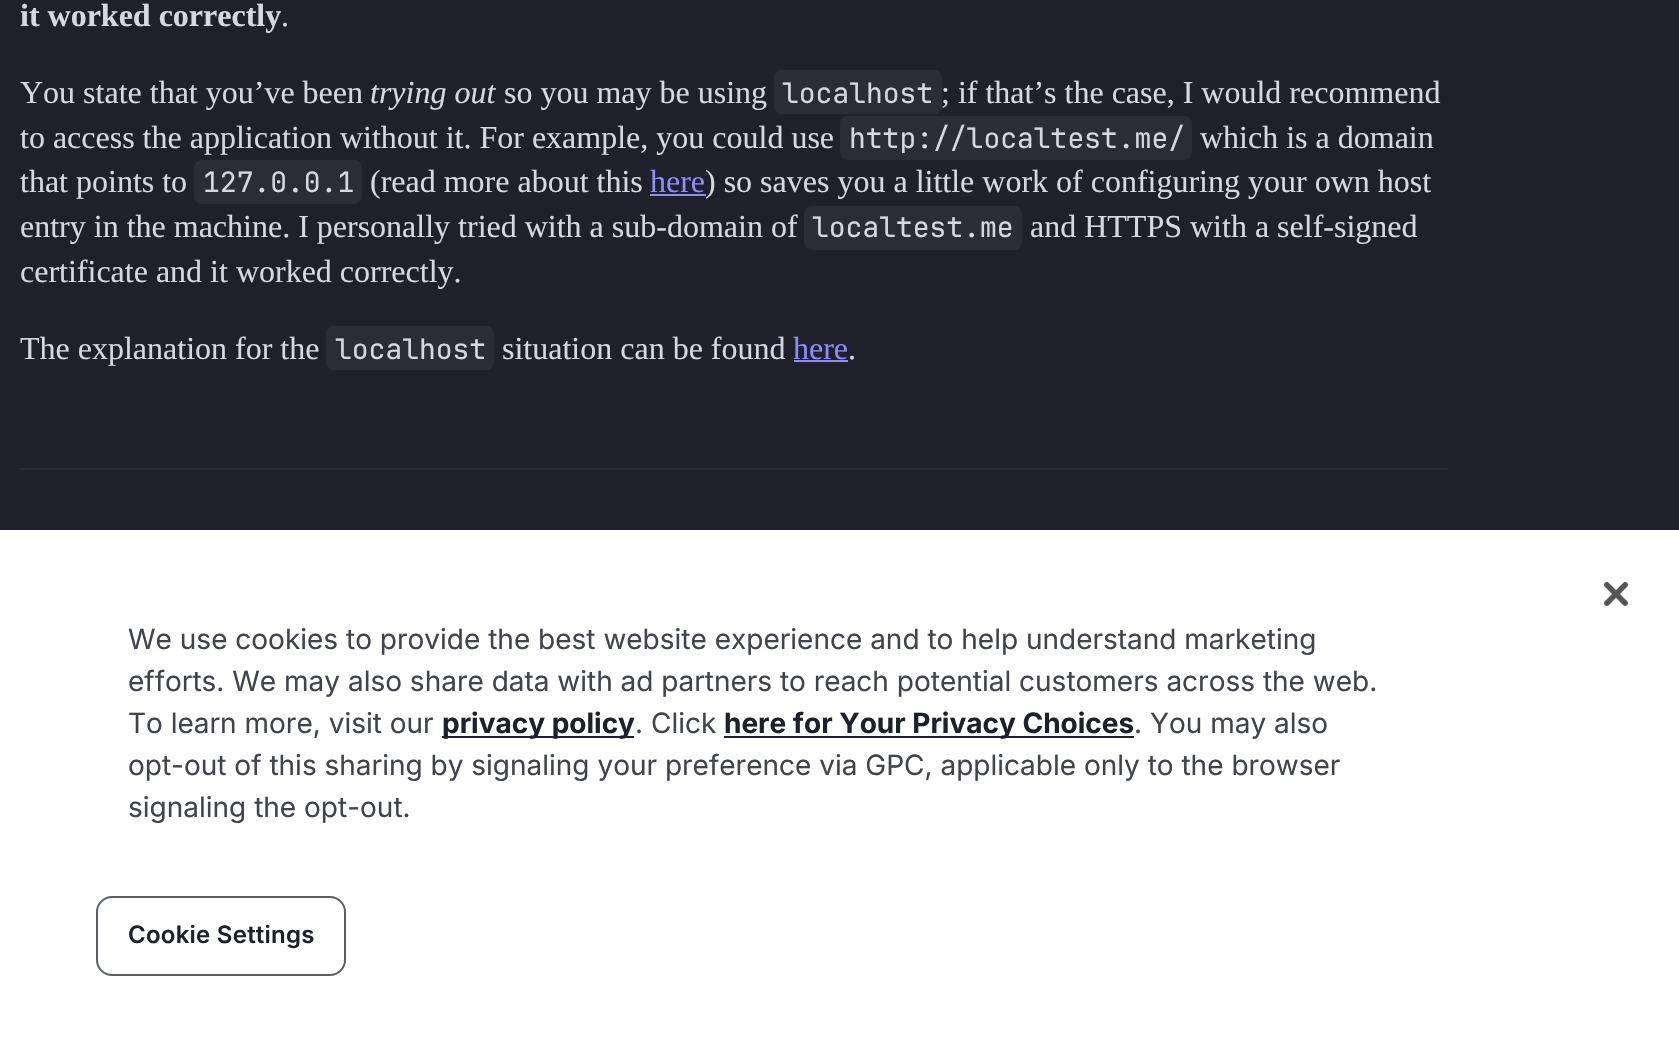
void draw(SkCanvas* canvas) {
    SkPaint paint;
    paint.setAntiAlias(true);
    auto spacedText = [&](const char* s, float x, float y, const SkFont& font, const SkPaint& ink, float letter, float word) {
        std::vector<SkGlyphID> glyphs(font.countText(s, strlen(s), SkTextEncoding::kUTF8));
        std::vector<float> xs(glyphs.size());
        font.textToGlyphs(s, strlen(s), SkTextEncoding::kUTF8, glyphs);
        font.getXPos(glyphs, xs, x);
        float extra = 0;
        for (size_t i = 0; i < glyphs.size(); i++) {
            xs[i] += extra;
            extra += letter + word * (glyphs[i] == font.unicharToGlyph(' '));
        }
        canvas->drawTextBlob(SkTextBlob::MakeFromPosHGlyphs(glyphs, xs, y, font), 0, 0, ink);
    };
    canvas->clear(0xFF1E212A);
    SkFont font1(fontMgr->matchFamilyStyle("Liberation Serif", SkFontStyle::Bold()), 32);
    font1.setSubpixel(true);
    paint.setColor(0xFFD6D8DE);
    canvas->drawString("it worked correctly", 20, 26, font1, paint);
    SkFont font2(fontMgr->matchFamilyStyle("Liberation Serif", SkFontStyle::Normal()), 32);
    font2.setSubpixel(true);
    canvas->drawString(".", 281, 26, font2, paint);
    canvas->drawString("You state that you’ve been", 20, 103, font2, paint);
    SkFont font3(fontMgr->matchFamilyStyle("Liberation Serif", SkFontStyle::Italic()), 32);
    font3.setSubpixel(true);
    canvas->drawString("trying out", 370, 103, font3, paint);
    canvas->drawString("so you may be using", 504, 103, font2, paint);
    paint.setColor(0xFF2B2D35);
    canvas->drawRoundRect(SkRect::MakeXYWH(774, 70, 168, 44), 8, 8, paint);
    SkFont font4(fontMgr->matchFamilyStyle("JetBrains Mono", SkFontStyle::Normal()), 28);
    font4.setSubpixel(true);
    paint.setColor(0xFFD6D8DE);
    canvas->drawString("localhost", 782, 103, font4, paint);
    canvas->drawString("; if that’s the case, I would recommend", 941, 103, font2, paint);
    canvas->drawString("to access the application without it. For example, you could use", 20, 148, font2, paint);
    paint.setColor(0xFF2B2D35);
    canvas->drawRoundRect(SkRect::MakeXYWH(840, 116, 352, 44), 8, 8, paint);
    paint.setColor(0xFFD6D8DE);
    canvas->drawString("http://localtest.me/", 849, 148, font4, paint);
    canvas->drawString("which is a domain", 1200, 148, font2, paint);
    canvas->drawString("that points to", 20, 192, font2, paint);
    paint.setColor(0xFF2B2D35);
    canvas->drawRoundRect(SkRect::MakeXYWH(194, 160, 168, 44), 8, 8, paint);
    paint.setColor(0xFFD6D8DE);
    canvas->drawString("127.0.0.1", 203, 192, font4, paint);
    canvas->drawString("(read more about this", 370, 192, font2, paint);
    paint.setColor(0xFF908BFF);
    canvas->drawString("here", 650, 192, font2, paint);
    canvas->drawRect(SkRect::MakeXYWH(650, 194, 56, 2), paint);
    paint.setColor(0xFFD6D8DE);
    canvas->drawString(") so saves you a little work of configuring your own host", 705, 192, font2, paint);
    canvas->drawString("entry in the machine. I personally tried with a sub-domain of", 20, 237, font2, paint);
    paint.setColor(0xFF2B2D35);
    canvas->drawRoundRect(SkRect::MakeXYWH(804, 206, 218, 44), 8, 8, paint);
    paint.setColor(0xFFD6D8DE);
    canvas->drawString("localtest.me", 812, 237, font4, paint);
    canvas->drawString("and HTTPS with a self-signed", 1030, 237, font2, paint);
    canvas->drawString("certificate and it worked correctly.", 20, 282, font2, paint);
    canvas->drawString("The explanation for the", 20, 359, font2, paint);
    paint.setColor(0xFF2B2D35);
    canvas->drawRoundRect(SkRect::MakeXYWH(326, 326, 168, 44), 8, 8, paint);
    paint.setColor(0xFFD6D8DE);
    canvas->drawString("localhost", 335, 359, font4, paint);
    canvas->drawString("situation can be found", 502, 359, font2, paint);
    paint.setColor(0xFF908BFF);
    canvas->drawString("here", 793, 359, font2, paint);
    canvas->drawRect(SkRect::MakeXYWH(794, 360, 54, 2), paint);
    paint.setColor(0xFFD6D8DE);
    canvas->drawString(".", 848, 359, font2, paint);
    paint.setColor(0xFF2B2D35);
    canvas->drawRect(SkRect::MakeXYWH(20, 468, 1428, 2), paint);
    paint.setColor(0xFFFFFFFF);
    canvas->drawRect(SkRect::MakeXYWH(0, 530, 1679, 526), paint);
    canvas->drawImageRect(SkImages::DeferredFromEncodedData(SkData::MakeFromFileName("img1.png")), SkRect::MakeXYWH(1604, 582, 24, 24), SkSamplingOptions());
    SkFont font5(fontMgr->matchFamilyStyle("Inter", SkFontStyle::Normal()), 28);
    font5.setSubpixel(true);
    paint.setColor(0xFF41444B);
    canvas->drawString("We use cookies to provide the best website experience and to help understand marketing", 128, 649, font5, paint);
    canvas->drawString("efforts. We may also share data with ad partners to reach potential customers across the web.", 128, 691, font5, paint);
    canvas->drawString("To learn more, visit our", 128, 733, font5, paint);
    paint.setColor(0xFF1E212A);
    canvas->drawRect(SkRect::MakeXYWH(442, 736, 192, 2), paint);
    SkFont font6(fontMgr->matchFamilyStyle("Inter", SkFontStyle::Bold()), 28);
    font6.setSubpixel(true);
    canvas->drawString("privacy policy", 442, 733, font6, paint);
    paint.setColor(0xFF41444B);
    canvas->drawString(". Click", 635, 733, font5, paint);
    paint.setColor(0xFF1E212A);
    canvas->drawRect(SkRect::MakeXYWH(724, 736, 410, 2), paint);
    canvas->drawString("here for Your Privacy Choices", 724, 733, font6, paint);
    paint.setColor(0xFF41444B);
    canvas->drawString(". You may also", 1134, 733, font5, paint);
    canvas->drawString("opt-out of this sharing by signaling your preference via GPC, applicable only to the browser", 128, 775, font5, paint);
    canvas->drawString("signaling the opt-out.", 128, 817, font5, paint);
    paint.setStyle(SkPaint::kStroke_Style);
    paint.setStrokeWidth(2);
    paint.setColor(0xFF5A5F66);
    canvas->drawRoundRect(SkRect::MakeXYWH(97, 897, 248, 78), 15, 15, paint);
    SkFont font7(fontMgr->matchFamilyStyle("Inter", SkFontStyle(600, SkFontStyle::kNormal_Width, SkFontStyle::kUpright_Slant)), 24);
    font7.setSubpixel(true);
    paint.setStyle(SkPaint::kFill_Style);
    paint.setColor(0xFF1E212A);
    spacedText("Cookie Settings", 128, 943, font7, paint, 0.25f, 0);
}
